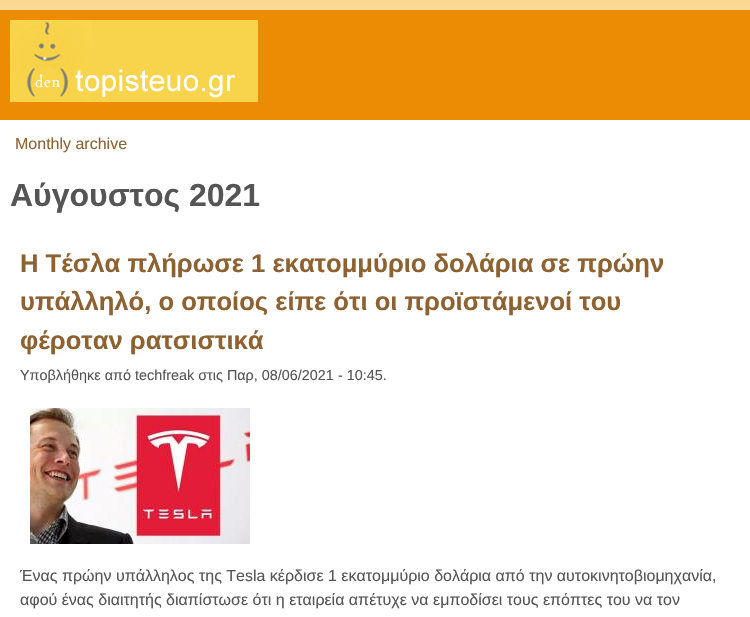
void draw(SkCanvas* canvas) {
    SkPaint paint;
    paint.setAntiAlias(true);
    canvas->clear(0xFFFFFFFF);
    canvas->drawImageRect(SkImages::DeferredFromEncodedData(SkData::MakeFromFileName("img1.png")), SkRect::MakeXYWH(0, 0, 750, 10), SkSamplingOptions());
    paint.setColor(0xFFEC8C04);
    canvas->drawRect(SkRect::MakeXYWH(0, 10, 750, 110), paint);
    canvas->drawImageRect(SkImages::DeferredFromEncodedData(SkData::MakeFromFileName("img2.png")), SkRect::MakeXYWH(10, 20, 248, 82), SkSamplingOptions());
    SkFont font1(fontMgr->matchFamilyStyle("Liberation Sans", SkFontStyle::Normal()), 16);
    font1.setSubpixel(true);
    paint.setColor(0xFF8E6130);
    canvas->drawString("Monthly archive", 15, 149, font1, paint);
    SkFont font2(fontMgr->matchFamilyStyle("Liberation Sans", SkFontStyle::Bold()), 32);
    font2.setSubpixel(true);
    paint.setColor(0xFF555555);
    canvas->drawString("Αύγουστος 2021", 10, 206, font2, paint);
    SkFont font3(fontMgr->matchFamilyStyle("Liberation Sans", SkFontStyle::Bold()), 25.6f);
    font3.setSubpixel(true);
    paint.setColor(0xFF8E6130);
    canvas->drawString("Η Τέσλα πλήρωσε 1 εκατομμύριο δολάρια σε πρώην", 20, 272, font3, paint);
    canvas->drawString("υπάλληλό, ο οποίος είπε ότι οι προϊστάμενοί του", 20, 310, font3, paint);
    canvas->drawString("φέροταν ρατσιστικά", 20, 349, font3, paint);
    SkFont font4(fontMgr->matchFamilyStyle("Liberation Sans", SkFontStyle::Normal()), 14.4f);
    font4.setSubpixel(true);
    paint.setColor(0xFF555555);
    canvas->drawString("Υποβλήθηκε από techfreak στις Παρ, 08/06/2021 - 10:45.", 20, 380, font4, paint);
    canvas->drawImageRect(SkImages::DeferredFromEncodedData(SkData::MakeFromFileName("img3.png")), SkRect::MakeXYWH(30, 408, 220, 136), SkSamplingOptions());
    canvas->drawString("Ένας πρώην υπάλληλος της Tesla κέρδισε 1 εκατομμύριο δολάρια από την αυτοκινητοβιομηχανία,", 20, 581, font1, paint);
    canvas->drawString("αφού ένας διαιτητής διαπίστωσε ότι η εταιρεία απέτυχε να εμποδίσει τους επόπτες του να τον", 20, 605, font1, paint);
}
